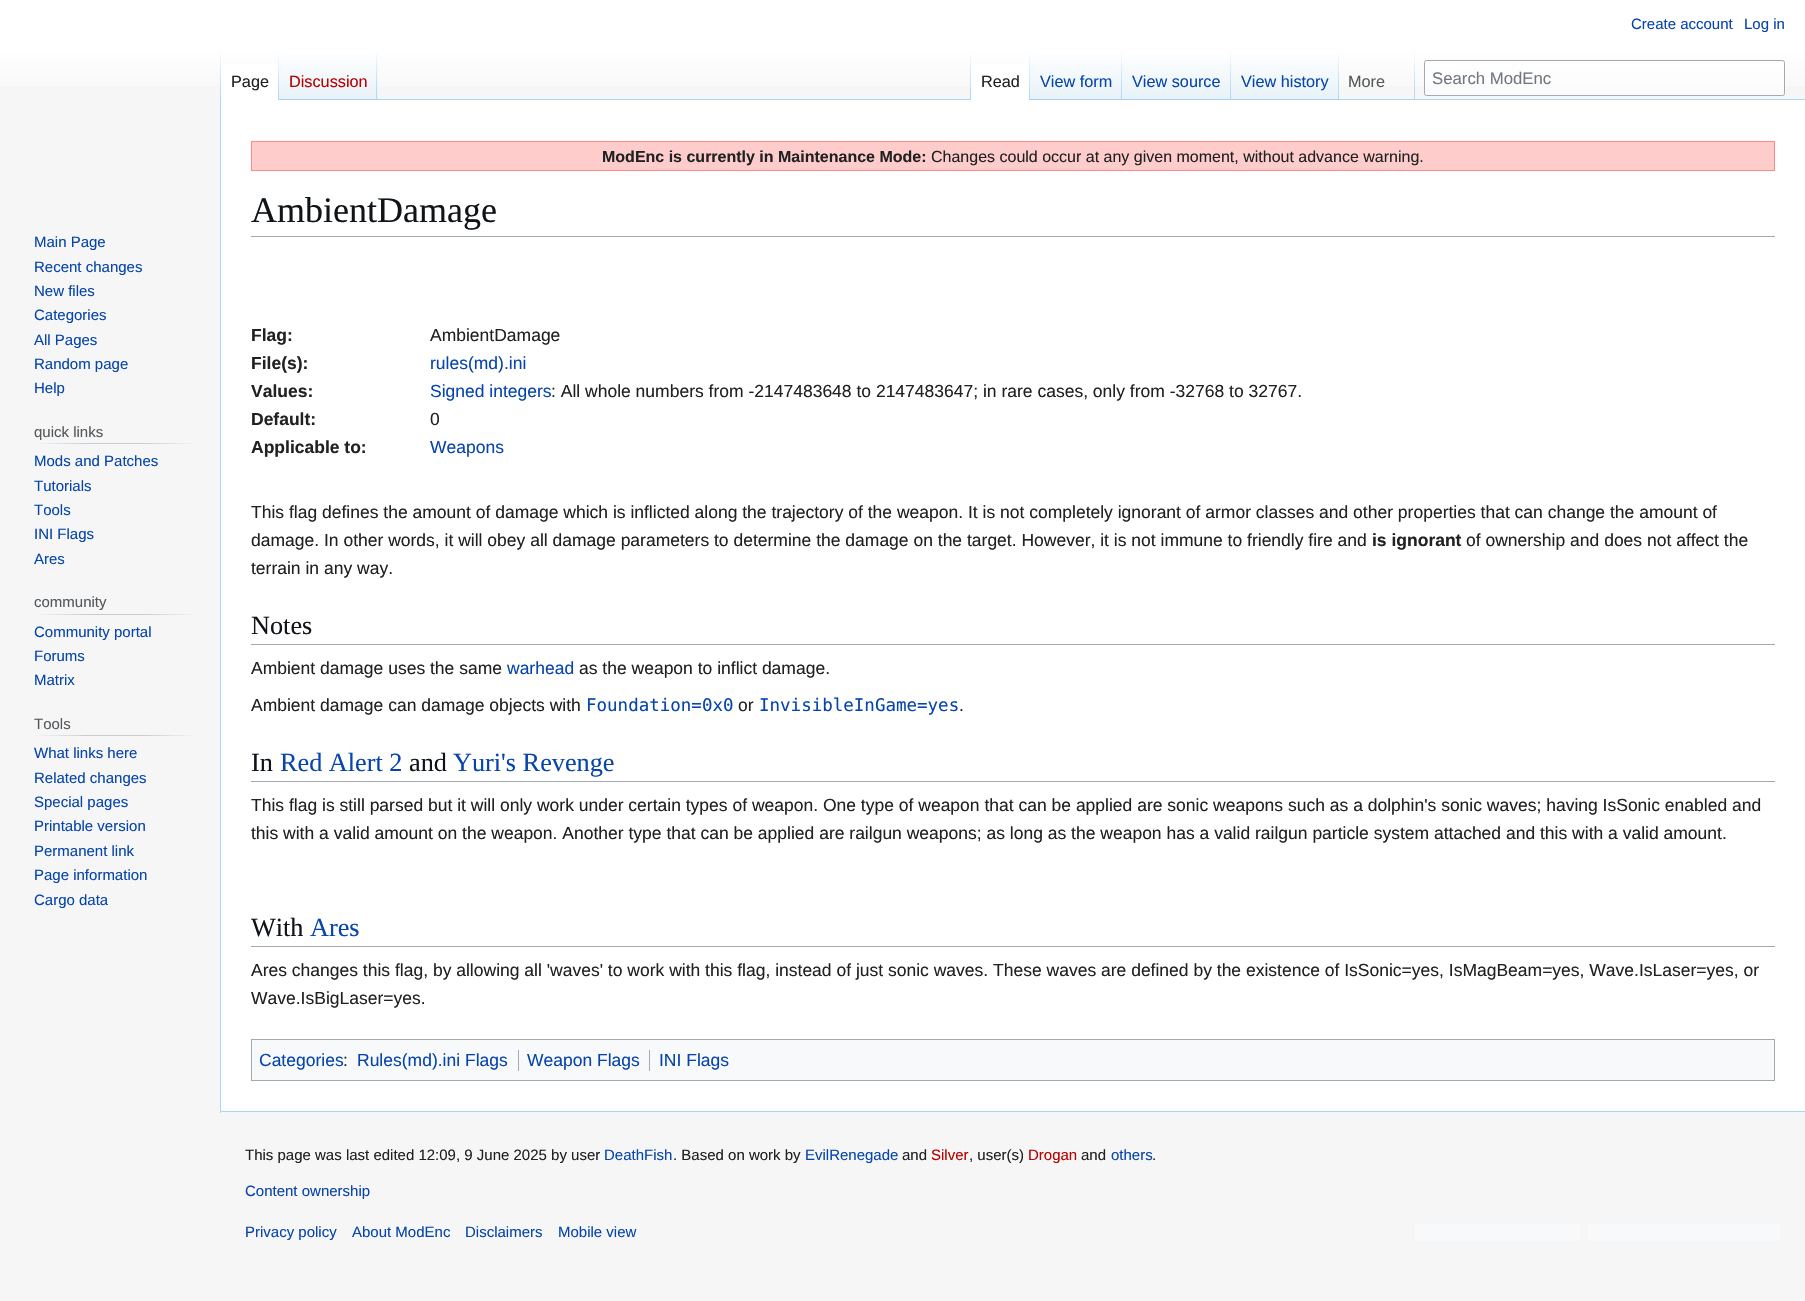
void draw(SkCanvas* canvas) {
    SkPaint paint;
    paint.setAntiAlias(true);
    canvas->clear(0xFFF6F6F6);
    {
        const SkColor colors[] = {0xFFFFFFFF, 0xFFF6F6F6};
        const float stops[] = {0.5f, 1};
        const SkPoint ends[] = {{903, 0}, {903, 100}};
        paint.setShader(SkGradientShader::MakeLinear(ends, colors, stops, 2, SkTileMode::kClamp));
        paint.setAlpha(255);
    }
    canvas->drawRect(SkRect::MakeXYWH(0, 0, 1805, 86), paint);
    SkFont font1(fontMgr->matchFamilyStyle("Liberation Sans", SkFontStyle::Normal()), 15);
    font1.setSubpixel(true);
    paint.setShader(nullptr);
    paint.setColor(0xFF0645AD);
    canvas->drawString("Create account", 1631, 29, font1, paint);
    canvas->drawString("Log in", 1744, 29, font1, paint);
    paint.setColor(0xFFA7D7F9);
    canvas->drawRect(SkRect::MakeXYWH(220, 1111, 1585, 1), paint);
    canvas->drawRect(SkRect::MakeXYWH(220, 99, 1, 1014), paint);
    {
        const SkColor colors[] = {0x00A7D7F9, 0xFFA7D7F9};
        const float stops[] = {0, 1};
        const SkPoint ends[] = {{221, 50}, {221, 100}};
        paint.setShader(SkGradientShader::MakeLinear(ends, colors, stops, 2, SkTileMode::kClamp));
        paint.setAlpha(255);
    }
    canvas->drawRect(SkRect::MakeXYWH(220, 50, 1, 50), paint);
    paint.setShader(nullptr);
    paint.setColor(0xFFFFFFFF);
    canvas->drawRect(SkRect::MakeXYWH(221, 64, 57, 36), paint);
    {
        const SkColor colors[] = {0xFFFFFFFF, 0xFFA7D7F9};
        const float stops[] = {0, 1};
        const SkPoint ends[] = {{278, 50}, {278, 100}};
        paint.setShader(SkGradientShader::MakeLinear(ends, colors, stops, 2, SkTileMode::kClamp));
        paint.setAlpha(255);
    }
    canvas->drawRect(SkRect::MakeXYWH(278, 50, 1, 50), paint);
    SkFont font2(fontMgr->matchFamilyStyle("Liberation Sans", SkFontStyle::Normal()), 16.25f);
    font2.setSubpixel(true);
    paint.setShader(nullptr);
    paint.setColor(0xFF202122);
    canvas->drawString("Page", 231, 87, font2, paint);
    {
        const SkColor colors[] = {0xFF77C1F6, 0xFFE8F2F8, 0xFFFFFFFF};
        const float stops[] = {0, 0.03f, 1};
        const SkPoint ends[] = {{328, 100}, {328, 50}};
        paint.setShader(SkGradientShader::MakeLinear(ends, colors, stops, 3, SkTileMode::kClamp));
        paint.setAlpha(255);
    }
    canvas->drawRect(SkRect::MakeXYWH(279, 57, 99, 43), paint);
    {
        const SkColor colors[] = {0x00A7D7F9, 0xFFA7D7F9};
        const float stops[] = {0, 1};
        const SkPoint ends[] = {{377, 50}, {377, 100}};
        paint.setShader(SkGradientShader::MakeLinear(ends, colors, stops, 2, SkTileMode::kClamp));
        paint.setAlpha(255);
    }
    canvas->drawRect(SkRect::MakeXYWH(376, 50, 1, 50), paint);
    paint.setShader(nullptr);
    paint.setColor(0xFFBA0000);
    canvas->drawString("Discussion", 289, 87, font2, paint);
    paint.setColor(0xFFA7D7F9);
    canvas->drawRect(SkRect::MakeXYWH(378, 99, 1427, 1), paint);
    {
        const SkColor colors[] = {0x00A7D7F9, 0xFFA7D7F9};
        const float stops[] = {0, 1};
        const SkPoint ends[] = {{971, 50}, {971, 100}};
        paint.setShader(SkGradientShader::MakeLinear(ends, colors, stops, 2, SkTileMode::kClamp));
        paint.setAlpha(255);
    }
    canvas->drawRect(SkRect::MakeXYWH(970, 50, 1, 50), paint);
    paint.setShader(nullptr);
    paint.setColor(0xFFFFFFFF);
    canvas->drawRect(SkRect::MakeXYWH(971, 64, 58, 36), paint);
    {
        const SkColor colors[] = {0xFFFFFFFF, 0xFFA7D7F9};
        const float stops[] = {0, 1};
        const SkPoint ends[] = {{1029, 50}, {1029, 100}};
        paint.setShader(SkGradientShader::MakeLinear(ends, colors, stops, 2, SkTileMode::kClamp));
        paint.setAlpha(255);
    }
    canvas->drawRect(SkRect::MakeXYWH(1029, 50, 1, 50), paint);
    paint.setShader(nullptr);
    paint.setColor(0xFF202122);
    canvas->drawString("Read", 981, 87, font2, paint);
    {
        const SkColor colors[] = {0xFF77C1F6, 0xFFE8F2F8, 0xFFFFFFFF};
        const float stops[] = {0, 0.03f, 1};
        const SkPoint ends[] = {{1076, 100}, {1076, 50}};
        paint.setShader(SkGradientShader::MakeLinear(ends, colors, stops, 3, SkTileMode::kClamp));
        paint.setAlpha(255);
    }
    canvas->drawRect(SkRect::MakeXYWH(1030, 57, 93, 43), paint);
    {
        const SkColor colors[] = {0x00A7D7F9, 0xFFA7D7F9};
        const float stops[] = {0, 1};
        const SkPoint ends[] = {{1122, 50}, {1122, 100}};
        paint.setShader(SkGradientShader::MakeLinear(ends, colors, stops, 2, SkTileMode::kClamp));
        paint.setAlpha(255);
    }
    canvas->drawRect(SkRect::MakeXYWH(1121, 50, 1, 50), paint);
    paint.setShader(nullptr);
    paint.setColor(0xFF0645AD);
    canvas->drawString("View form", 1040, 87, font2, paint);
    {
        const SkColor colors[] = {0xFF77C1F6, 0xFFE8F2F8, 0xFFFFFFFF};
        const float stops[] = {0, 0.03f, 1};
        const SkPoint ends[] = {{1177, 100}, {1177, 50}};
        paint.setShader(SkGradientShader::MakeLinear(ends, colors, stops, 3, SkTileMode::kClamp));
        paint.setAlpha(255);
    }
    canvas->drawRect(SkRect::MakeXYWH(1123, 57, 108, 43), paint);
    {
        const SkColor colors[] = {0x00A7D7F9, 0xFFA7D7F9};
        const float stops[] = {0, 1};
        const SkPoint ends[] = {{1231, 50}, {1231, 100}};
        paint.setShader(SkGradientShader::MakeLinear(ends, colors, stops, 2, SkTileMode::kClamp));
        paint.setAlpha(255);
    }
    canvas->drawRect(SkRect::MakeXYWH(1230, 50, 1, 50), paint);
    paint.setShader(nullptr);
    paint.setColor(0xFF0645AD);
    canvas->drawString("View source", 1132, 87, font2, paint);
    {
        const SkColor colors[] = {0xFF77C1F6, 0xFFE8F2F8, 0xFFFFFFFF};
        const float stops[] = {0, 0.03f, 1};
        const SkPoint ends[] = {{1285, 100}, {1285, 50}};
        paint.setShader(SkGradientShader::MakeLinear(ends, colors, stops, 3, SkTileMode::kClamp));
        paint.setAlpha(255);
    }
    canvas->drawRect(SkRect::MakeXYWH(1231, 57, 108, 43), paint);
    {
        const SkColor colors[] = {0x00A7D7F9, 0xFFA7D7F9};
        const float stops[] = {0, 1};
        const SkPoint ends[] = {{1338, 50}, {1338, 100}};
        paint.setShader(SkGradientShader::MakeLinear(ends, colors, stops, 2, SkTileMode::kClamp));
        paint.setAlpha(255);
    }
    canvas->drawRect(SkRect::MakeXYWH(1338, 50, 1, 50), paint);
    paint.setShader(nullptr);
    paint.setColor(0xFF0645AD);
    canvas->drawString("View history", 1241, 87, font2, paint);
    {
        const SkColor colors[] = {0x00A7D7F9, 0xFFA7D7F9};
        const float stops[] = {0, 1};
        const SkPoint ends[] = {{1414, 50}, {1414, 100}};
        paint.setShader(SkGradientShader::MakeLinear(ends, colors, stops, 2, SkTileMode::kClamp));
        paint.setAlpha(255);
    }
    canvas->drawRect(SkRect::MakeXYWH(1414, 50, 1, 50), paint);
    paint.setShader(nullptr);
    paint.setColor(0xFF54595D);
    canvas->drawString("More", 1348, 87, font2, paint);
    paint.setColor(0x80FFFFFF);
    canvas->drawRoundRect(SkRect::MakeXYWH(1424.5f, 60.5f, 360, 35), 2, 2, paint);
    paint.setStyle(SkPaint::kStroke_Style);
    paint.setStrokeWidth(1);
    paint.setColor(0xFFA2A9B1);
    canvas->drawRoundRect(SkRect::MakeXYWH(1424.5f, 60.5f, 360, 35), 2, 2, paint);
    SkFont font3(fontMgr->matchFamilyStyle("Liberation Sans", SkFontStyle::Normal()), 16.75f);
    font3.setSubpixel(true);
    paint.setStyle(SkPaint::kFill_Style);
    paint.setColor(0xFF72777D);
    canvas->drawString("Search ModEnc", 1432, 84, font3, paint);
    paint.setColor(0xFF0645AD);
    canvas->drawString("Main Page", 34, 247, font1, paint);
    canvas->drawString("Recent changes", 34, 272, font1, paint);
    canvas->drawString("New files", 34, 296, font1, paint);
    canvas->drawString("Categories", 34, 320, font1, paint);
    canvas->drawString("All Pages", 34, 345, font1, paint);
    canvas->drawString("Random page", 34, 369, font1, paint);
    canvas->drawString("Help", 34, 393, font1, paint);
    {
        const SkColor colors[] = {0xFFF6F6F6, 0xFFC8CCD1, 0xFFC8CCD1, 0xFFF6F6F6};
        const float stops[] = {0, 0.33f, 0.66f, 1};
        const SkPoint ends[] = {{34, 443}, {198, 443}};
        paint.setShader(SkGradientShader::MakeLinear(ends, colors, stops, 4, SkTileMode::kClamp));
        paint.setAlpha(255);
    }
    canvas->drawRect(SkRect::MakeXYWH(34, 443, 164, 1), paint);
    paint.setShader(nullptr);
    paint.setColor(0xFF54595D);
    canvas->drawString("quick links", 34, 437, font1, paint);
    paint.setColor(0xFF0645AD);
    canvas->drawString("Mods and Patches", 34, 466, font1, paint);
    canvas->drawString("Tutorials", 34, 491, font1, paint);
    canvas->drawString("Tools", 34, 515, font1, paint);
    canvas->drawString("INI Flags", 34, 539, font1, paint);
    canvas->drawString("Ares", 34, 564, font1, paint);
    {
        const SkColor colors[] = {0xFFF6F6F6, 0xFFC8CCD1, 0xFFC8CCD1, 0xFFF6F6F6};
        const float stops[] = {0, 0.33f, 0.66f, 1};
        const SkPoint ends[] = {{34, 614}, {198, 614}};
        paint.setShader(SkGradientShader::MakeLinear(ends, colors, stops, 4, SkTileMode::kClamp));
        paint.setAlpha(255);
    }
    canvas->drawRect(SkRect::MakeXYWH(34, 614, 164, 1), paint);
    paint.setShader(nullptr);
    paint.setColor(0xFF54595D);
    canvas->drawString("community", 34, 607, font1, paint);
    paint.setColor(0xFF0645AD);
    canvas->drawString("Community portal", 34, 637, font1, paint);
    canvas->drawString("Forums", 34, 661, font1, paint);
    canvas->drawString("Matrix", 34, 685, font1, paint);
    {
        const SkColor colors[] = {0xFFF6F6F6, 0xFFC8CCD1, 0xFFC8CCD1, 0xFFF6F6F6};
        const float stops[] = {0, 0.33f, 0.66f, 1};
        const SkPoint ends[] = {{34, 736}, {198, 736}};
        paint.setShader(SkGradientShader::MakeLinear(ends, colors, stops, 4, SkTileMode::kClamp));
        paint.setAlpha(255);
    }
    canvas->drawRect(SkRect::MakeXYWH(34, 735, 164, 1), paint);
    paint.setShader(nullptr);
    paint.setColor(0xFF54595D);
    canvas->drawString("Tools", 34, 729, font1, paint);
    paint.setColor(0xFF0645AD);
    canvas->drawString("What links here", 34, 758, font1, paint);
    canvas->drawString("Related changes", 34, 783, font1, paint);
    canvas->drawString("Special pages", 34, 807, font1, paint);
    canvas->drawString("Printable version", 34, 831, font1, paint);
    canvas->drawString("Permanent link", 34, 856, font1, paint);
    canvas->drawString("Page information", 34, 880, font1, paint);
    canvas->drawString("Cargo data", 34, 905, font1, paint);
    paint.setColor(0xFFFFFFFF);
    canvas->drawRect(SkRect::MakeXYWH(221, 100, 1584, 1011), paint);
    paint.setColor(0xFFFFCCCC);
    canvas->drawRect(SkRect::MakeXYWH(251.5f, 141.5f, 1523, 29), paint);
    paint.setStyle(SkPaint::kStroke_Style);
    paint.setColor(0xFFFF8888);
    canvas->drawRect(SkRect::MakeXYWH(251.5f, 141.5f, 1523, 29), paint);
    SkFont font4(fontMgr->matchFamilyStyle("Liberation Sans", SkFontStyle::Bold()), 16);
    font4.setSubpixel(true);
    paint.setStyle(SkPaint::kFill_Style);
    paint.setColor(0xFF202122);
    canvas->drawString("ModEnc is currently in Maintenance Mode:", 602, 162, font4, paint);
    SkFont font5(fontMgr->matchFamilyStyle("Liberation Sans", SkFontStyle::Normal()), 16);
    font5.setSubpixel(true);
    canvas->drawString("Changes could occur at any given moment, without advance warning.", 931, 162, font5, paint);
    paint.setColor(0xFFA2A9B1);
    canvas->drawRect(SkRect::MakeXYWH(251, 236, 1524, 1), paint);
    SkFont font6(fontMgr->matchFamilyStyle("Liberation Serif", SkFontStyle::Normal()), 36);
    font6.setSubpixel(true);
    paint.setColor(0xFF101418);
    canvas->drawString("AmbientDamage", 251, 222, font6, paint);
    SkFont font7(fontMgr->matchFamilyStyle("Liberation Sans", SkFontStyle::Bold()), 17.5f);
    font7.setSubpixel(true);
    paint.setColor(0xFF202122);
    canvas->drawString("Flag:", 251, 341, font7, paint);
    SkFont font8(fontMgr->matchFamilyStyle("Liberation Sans", SkFontStyle::Normal()), 17.5f);
    font8.setSubpixel(true);
    canvas->drawString("AmbientDamage", 430, 341, font8, paint);
    canvas->drawString("File(s):", 251, 369, font7, paint);
    paint.setColor(0xFF0645AD);
    canvas->drawString("rules(md).ini", 430, 369, font8, paint);
    paint.setColor(0xFF202122);
    canvas->drawString("Values:", 251, 397, font7, paint);
    paint.setColor(0xFF0645AD);
    canvas->drawString("Signed integers", 430, 397, font8, paint);
    paint.setColor(0xFF202122);
    canvas->drawString(": All whole numbers from -2147483648 to 2147483647; in rare cases, only from -32768 to 32767.", 551, 397, font8, paint);
    canvas->drawString("Default:", 251, 425, font7, paint);
    canvas->drawString("0", 430, 425, font8, paint);
    canvas->drawString("Applicable to:", 251, 453, font7, paint);
    paint.setColor(0xFF0645AD);
    canvas->drawString("Weapons", 430, 453, font8, paint);
    paint.setColor(0xFF202122);
    canvas->drawString("This flag defines the amount of damage which is inflicted along the trajectory of the weapon. It is not completely ignorant of armor classes and other properties that can change the amount of", 251, 518, font8, paint);
    canvas->drawString("damage. In other words, it will obey all damage parameters to determine the damage on the target. However, it is not immune to friendly fire and", 251, 546, font8, paint);
    canvas->drawString("is ignorant", 1372, 546, font7, paint);
    canvas->drawString("of ownership and does not affect the", 1466, 546, font8, paint);
    canvas->drawString("terrain in any way.", 251, 574, font8, paint);
    paint.setColor(0xFFA2A9B1);
    canvas->drawRect(SkRect::MakeXYWH(251, 644, 1524, 1), paint);
    SkFont font9(fontMgr->matchFamilyStyle("Liberation Serif", SkFontStyle::Normal()), 26.25f);
    font9.setSubpixel(true);
    paint.setColor(0xFF101418);
    canvas->drawString("Notes", 251, 634, font9, paint);
    paint.setColor(0xFF202122);
    canvas->drawString("Ambient damage uses the same", 251, 674, font8, paint);
    paint.setColor(0xFF0645AD);
    canvas->drawString("warhead", 507, 674, font8, paint);
    paint.setColor(0xFF202122);
    canvas->drawString("as the weapon to inflict damage.", 579, 674, font8, paint);
    canvas->drawString("Ambient damage can damage objects with", 251, 711, font8, paint);
    SkFont font10(fontMgr->matchFamilyStyle("DejaVu Sans Mono", SkFontStyle::Normal()), 17.5f);
    font10.setSubpixel(true);
    paint.setColor(0xFF0645AD);
    canvas->drawString("Foundation=0x0", 586, 711, font10, paint);
    paint.setColor(0xFF202122);
    canvas->drawString("or", 738, 711, font8, paint);
    paint.setColor(0xFF0645AD);
    canvas->drawString("InvisibleInGame=yes", 759, 711, font10, paint);
    paint.setColor(0xFF202122);
    canvas->drawString(".", 959, 711, font8, paint);
    paint.setColor(0xFFA2A9B1);
    canvas->drawRect(SkRect::MakeXYWH(251, 781, 1524, 1), paint);
    paint.setColor(0xFF101418);
    canvas->drawString("In", 251, 771, font9, paint);
    paint.setColor(0xFF0645AD);
    canvas->drawString("Red Alert 2", 280, 771, font9, paint);
    paint.setColor(0xFF101418);
    canvas->drawString("and", 409, 771, font9, paint);
    paint.setColor(0xFF0645AD);
    canvas->drawString("Yuri's Revenge", 453, 771, font9, paint);
    paint.setColor(0xFF202122);
    canvas->drawString("This flag is still parsed but it will only work under certain types of weapon. One type of weapon that can be applied are sonic weapons such as a dolphin's sonic waves; having IsSonic enabled and", 251, 811, font8, paint);
    canvas->drawString("this with a valid amount on the weapon. Another type that can be applied are railgun weapons; as long as the weapon has a valid railgun particle system attached and this with a valid amount.", 251, 839, font8, paint);
    paint.setColor(0xFFA2A9B1);
    canvas->drawRect(SkRect::MakeXYWH(251, 946, 1524, 1), paint);
    paint.setColor(0xFF101418);
    canvas->drawString("With", 251, 936, font9, paint);
    paint.setColor(0xFF0645AD);
    canvas->drawString("Ares", 310, 936, font9, paint);
    paint.setColor(0xFF202122);
    canvas->drawString("Ares changes this flag, by allowing all 'waves' to work with this flag, instead of just sonic waves. These waves are defined by the existence of IsSonic=yes, IsMagBeam=yes, Wave.IsLaser=yes, or", 251, 976, font8, paint);
    canvas->drawString("Wave.IsBigLaser=yes.", 251, 1004, font8, paint);
    paint.setColor(0xFFF8F9FA);
    canvas->drawRect(SkRect::MakeXYWH(251.5f, 1039.5f, 1523, 41), paint);
    paint.setStyle(SkPaint::kStroke_Style);
    paint.setColor(0xFFA2A9B1);
    canvas->drawRect(SkRect::MakeXYWH(251.5f, 1039.5f, 1523, 41), paint);
    paint.setStyle(SkPaint::kFill_Style);
    paint.setColor(0xFF0645AD);
    canvas->drawString("Categories", 259, 1066, font8, paint);
    paint.setColor(0xFF202122);
    canvas->drawString(":", 343, 1066, font8, paint);
    paint.setColor(0xFF0645AD);
    canvas->drawString("Rules(md).ini Flags", 357, 1066, font8, paint);
    paint.setColor(0xFFA2A9B1);
    canvas->drawRect(SkRect::MakeXYWH(518, 1050, 1, 21), paint);
    paint.setColor(0xFF0645AD);
    canvas->drawString("Weapon Flags", 527, 1066, font8, paint);
    paint.setColor(0xFFA2A9B1);
    canvas->drawRect(SkRect::MakeXYWH(649, 1050, 1, 21), paint);
    paint.setColor(0xFF0645AD);
    canvas->drawString("INI Flags", 659, 1066, font8, paint);
    paint.setColor(0xFF202122);
    canvas->drawString("This page was last edited 12:09, 9 June 2025 by user", 245, 1160, font1, paint);
    paint.setColor(0xFF0645AD);
    canvas->drawString("DeathFish", 604, 1160, font1, paint);
    paint.setColor(0xFF202122);
    canvas->drawString(". Based on work by", 673, 1160, font1, paint);
    paint.setColor(0xFF0645AD);
    canvas->drawString("EvilRenegade", 805, 1160, font1, paint);
    paint.setColor(0xFF202122);
    canvas->drawString("and", 902, 1160, font1, paint);
    paint.setColor(0xFFBA0000);
    canvas->drawString("Silver", 931, 1160, font1, paint);
    paint.setColor(0xFF202122);
    canvas->drawString(", user(s)", 969, 1160, font1, paint);
    paint.setColor(0xFFBA0000);
    canvas->drawString("Drogan", 1028, 1160, font1, paint);
    paint.setColor(0xFF202122);
    canvas->drawString("and", 1081, 1160, font1, paint);
    paint.setColor(0xFF0645AD);
    canvas->drawString("others", 1111, 1160, font1, paint);
    paint.setColor(0xFF202122);
    canvas->drawString(".", 1152, 1160, font1, paint);
    paint.setColor(0xFF0645AD);
    canvas->drawString("Content ownership", 245, 1196, font1, paint);
    canvas->drawString("Privacy policy", 245, 1237, font1, paint);
    canvas->drawString("About ModEnc", 352, 1237, font1, paint);
    canvas->drawString("Disclaimers", 465, 1237, font1, paint);
    canvas->drawString("Mobile view", 558, 1237, font1, paint);
    paint.setColor(0xFFF8F9FA);
    canvas->drawRect(SkRect::MakeXYWH(1415, 1224, 165, 17), paint);
    canvas->drawRect(SkRect::MakeXYWH(1588, 1224, 192, 17), paint);
}
